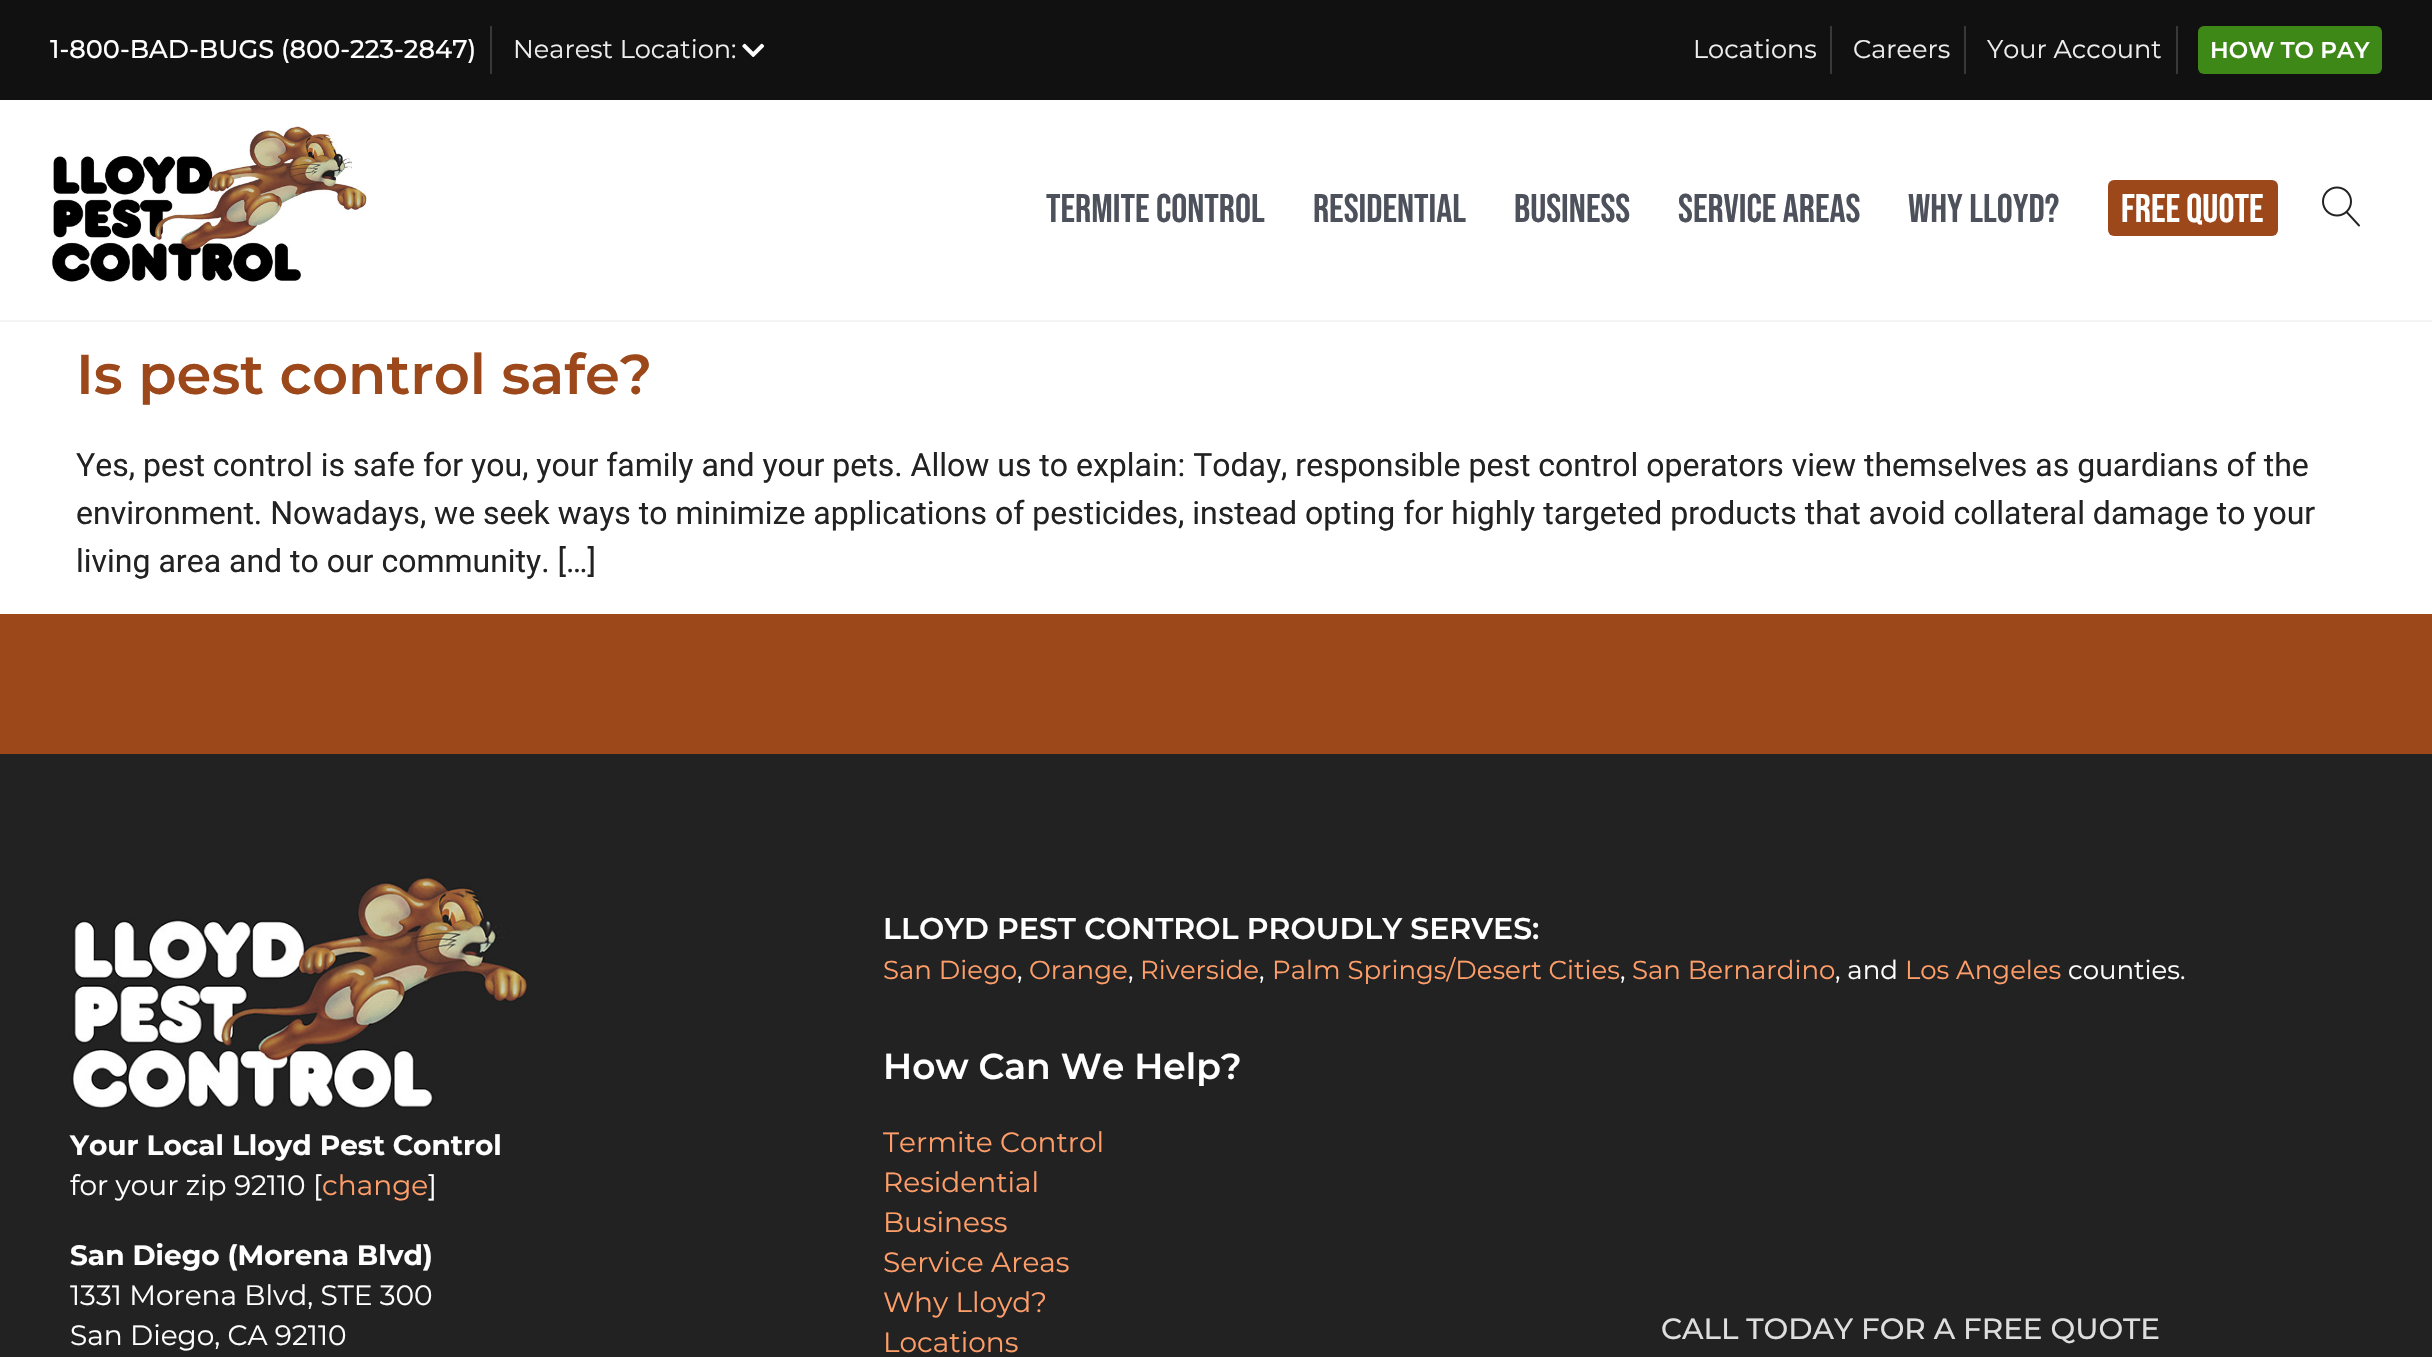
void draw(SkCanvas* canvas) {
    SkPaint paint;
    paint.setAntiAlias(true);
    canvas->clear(0xFFFFFFFF);
    paint.setColor(0xFF111111);
    canvas->drawRect(SkRect::MakeXYWH(0, 0, 2432, 100), paint);
    paint.setColor(0xFF393939);
    canvas->drawRect(SkRect::MakeXYWH(490, 26, 2, 48), paint);
    SkFont font1(fontMgr->matchFamilyStyle("Montserrat", SkFontStyle(500, SkFontStyle::kNormal_Width, SkFontStyle::kUpright_Slant)), 25.6f);
    font1.setSubpixel(true);
    paint.setColor(0xFFFFFFFF);
    canvas->drawString("1-800-BAD-BUGS (800-223-2847)", 50, 58, font1, paint);
    SkFont font2(fontMgr->matchFamilyStyle("Montserrat", SkFontStyle::Normal()), 25.6f);
    font2.setSubpixel(true);
    paint.setColor(0xFFEEEEEE);
    canvas->drawString("Nearest Location:", 513, 58, font2, paint);
    canvas->drawImageRect(SkImages::DeferredFromEncodedData(SkData::MakeFromFileName("img1.png")), SkRect::MakeXYWH(742, 43, 23, 14), SkSamplingOptions());
    paint.setColor(0xFF393939);
    canvas->drawRect(SkRect::MakeXYWH(1830, 26, 2, 48), paint);
    paint.setColor(0xFFEEEEEE);
    canvas->drawString("Locations", 1693, 58, font2, paint);
    paint.setColor(0xFF393939);
    canvas->drawRect(SkRect::MakeXYWH(1964, 26, 2, 48), paint);
    paint.setColor(0xFFEEEEEE);
    canvas->drawString("Careers", 1853, 58, font2, paint);
    paint.setColor(0xFF393939);
    canvas->drawRect(SkRect::MakeXYWH(2176, 26, 2, 48), paint);
    paint.setColor(0xFFEEEEEE);
    canvas->drawString("Your Account", 1987, 58, font2, paint);
    paint.setColor(0xFF3E8817);
    canvas->drawRoundRect(SkRect::MakeXYWH(2198, 26, 184, 48), 6, 6, paint);
    SkFont font3(fontMgr->matchFamilyStyle("Montserrat", SkFontStyle(600, SkFontStyle::kNormal_Width, SkFontStyle::kUpright_Slant)), 23);
    font3.setSubpixel(true);
    paint.setColor(0xFFFFFFFF);
    canvas->drawString("HOW TO PAY", 2210, 58, font3, paint);
    paint.setColor(0xFFF2F4F6);
    canvas->drawRect(SkRect::MakeXYWH(0, 320, 2432, 2), paint);
    canvas->drawImageRect(SkImages::DeferredFromEncodedData(SkData::MakeFromFileName("img2.png")), SkRect::MakeXYWH(51, 126, 316, 156), SkSamplingOptions());
    SkFont font4(fontMgr->matchFamilyStyle("Bebas Neue", SkFontStyle::Normal()), 40);
    font4.setSubpixel(true);
    paint.setColor(0xFF4D515C);
    canvas->drawString("Termite Control", 1046, 222, font4, paint);
    canvas->drawString("Residential", 1313, 222, font4, paint);
    canvas->drawString("Business", 1514, 222, font4, paint);
    canvas->drawString("Service Areas", 1678, 222, font4, paint);
    canvas->drawString("Why Lloyd?", 1908, 222, font4, paint);
    paint.setColor(0xFF9C481A);
    canvas->drawRoundRect(SkRect::MakeXYWH(2108, 180, 170, 56), 6, 6, paint);
    paint.setColor(0xFFFFFFFF);
    canvas->drawString("Free Quote", 2121, 222, font4, paint);
    canvas->drawImageRect(SkImages::DeferredFromEncodedData(SkData::MakeFromFileName("img3.png")), SkRect::MakeXYWH(2322, 186, 38, 41), SkSamplingOptions());
    SkFont font5(fontMgr->matchFamilyStyle("Montserrat", SkFontStyle(600, SkFontStyle::kNormal_Width, SkFontStyle::kUpright_Slant)), 56);
    font5.setSubpixel(true);
    paint.setColor(0xFF9C481A);
    canvas->drawString("Is pest control safe?", 76, 394, font5, paint);
    SkFont font6(fontMgr->matchFamilyStyle("Roboto", SkFontStyle::Normal()), 32);
    font6.setSubpixel(true);
    paint.setColor(0xFF222222);
    canvas->drawString("Yes, pest control is safe for you, your family and your pets. Allow us to explain: Today, responsible pest control operators view themselves as guardians of the", 76, 476, font6, paint);
    canvas->drawString("environment. Nowadays, we seek ways to minimize applications of pesticides, instead opting for highly targeted products that avoid collateral damage to your", 76, 524, font6, paint);
    canvas->drawString("living area and to our community. […]", 76, 572, font6, paint);
    paint.setColor(0xFF9C481A);
    canvas->drawRect(SkRect::MakeXYWH(0, 614, 2432, 140), paint);
    paint.setColor(0xFF222222);
    canvas->drawRect(SkRect::MakeXYWH(0, 754, 2432, 603), paint);
    canvas->drawImageRect(SkImages::DeferredFromEncodedData(SkData::MakeFromFileName("img4.png")), SkRect::MakeXYWH(70, 874, 458, 235), SkSamplingOptions());
    SkFont font7(fontMgr->matchFamilyStyle("Montserrat", SkFontStyle::Bold()), 28);
    font7.setSubpixel(true);
    paint.setColor(0xFFFFFFFF);
    canvas->drawString("Your Local Lloyd Pest Control", 70, 1155, font7, paint);
    SkFont font8(fontMgr->matchFamilyStyle("Montserrat", SkFontStyle::Normal()), 28);
    font8.setSubpixel(true);
    canvas->drawString("for your zip 92110 [", 70, 1195, font8, paint);
    paint.setColor(0xFFFF9E69);
    canvas->drawString("change", 322, 1195, font8, paint);
    paint.setColor(0xFFFFFFFF);
    canvas->drawString("]", 428, 1195, font8, paint);
    canvas->drawString("San Diego (Morena Blvd)", 70, 1265, font7, paint);
    canvas->drawString("1331 Morena Blvd, STE 300", 70, 1305, font8, paint);
    canvas->drawString("San Diego, CA 92110", 70, 1345, font8, paint);
    SkFont font9(fontMgr->matchFamilyStyle("Montserrat", SkFontStyle(600, SkFontStyle::kNormal_Width, SkFontStyle::kUpright_Slant)), 30);
    font9.setSubpixel(true);
    canvas->drawString("LLOYD PEST CONTROL PROUDLY SERVES:", 883, 939, font9, paint);
    SkFont font10(fontMgr->matchFamilyStyle("Montserrat", SkFontStyle::Normal()), 26);
    font10.setSubpixel(true);
    paint.setColor(0xFFFF9E69);
    canvas->drawString("San Diego", 883, 979, font10, paint);
    paint.setColor(0xFFFFFFFF);
    canvas->drawString(",", 1017, 979, font10, paint);
    paint.setColor(0xFFFF9E69);
    canvas->drawString("Orange", 1029, 979, font10, paint);
    paint.setColor(0xFFFFFFFF);
    canvas->drawString(",", 1128, 979, font10, paint);
    paint.setColor(0xFFFF9E69);
    canvas->drawString("Riverside", 1140, 979, font10, paint);
    paint.setColor(0xFFFFFFFF);
    canvas->drawString(",", 1259, 979, font10, paint);
    paint.setColor(0xFFFF9E69);
    canvas->drawString("Palm Springs/Desert Cities", 1272, 979, font10, paint);
    paint.setColor(0xFFFFFFFF);
    canvas->drawString(",", 1620, 979, font10, paint);
    paint.setColor(0xFFFF9E69);
    canvas->drawString("San Bernardino", 1632, 979, font10, paint);
    paint.setColor(0xFFFFFFFF);
    canvas->drawString(", and", 1835, 979, font10, paint);
    paint.setColor(0xFFFF9E69);
    canvas->drawString("Los Angeles", 1905, 979, font10, paint);
    paint.setColor(0xFFFFFFFF);
    canvas->drawString("counties.", 2068, 979, font10, paint);
    SkFont font11(fontMgr->matchFamilyStyle("Montserrat", SkFontStyle(600, SkFontStyle::kNormal_Width, SkFontStyle::kUpright_Slant)), 36);
    font11.setSubpixel(true);
    canvas->drawString("How Can We Help?", 883, 1079, font11, paint);
    paint.setColor(0xFFFF9E69);
    canvas->drawString("Termite Control", 883, 1152, font8, paint);
    canvas->drawString("Residential", 883, 1192, font8, paint);
    canvas->drawString("Business", 883, 1232, font8, paint);
    canvas->drawString("Service Areas", 883, 1272, font8, paint);
    canvas->drawString("Why Lloyd?", 883, 1312, font8, paint);
    canvas->drawString("Locations", 883, 1352, font8, paint);
    SkFont font12(fontMgr->matchFamilyStyle("Montserrat", SkFontStyle(500, SkFontStyle::kNormal_Width, SkFontStyle::kUpright_Slant)), 29.4f);
    font12.setSubpixel(true);
    paint.setColor(0xFFDEDEDE);
    canvas->drawString("CALL TODAY FOR A FREE QUOTE", 1661, 1339, font12, paint);
}
